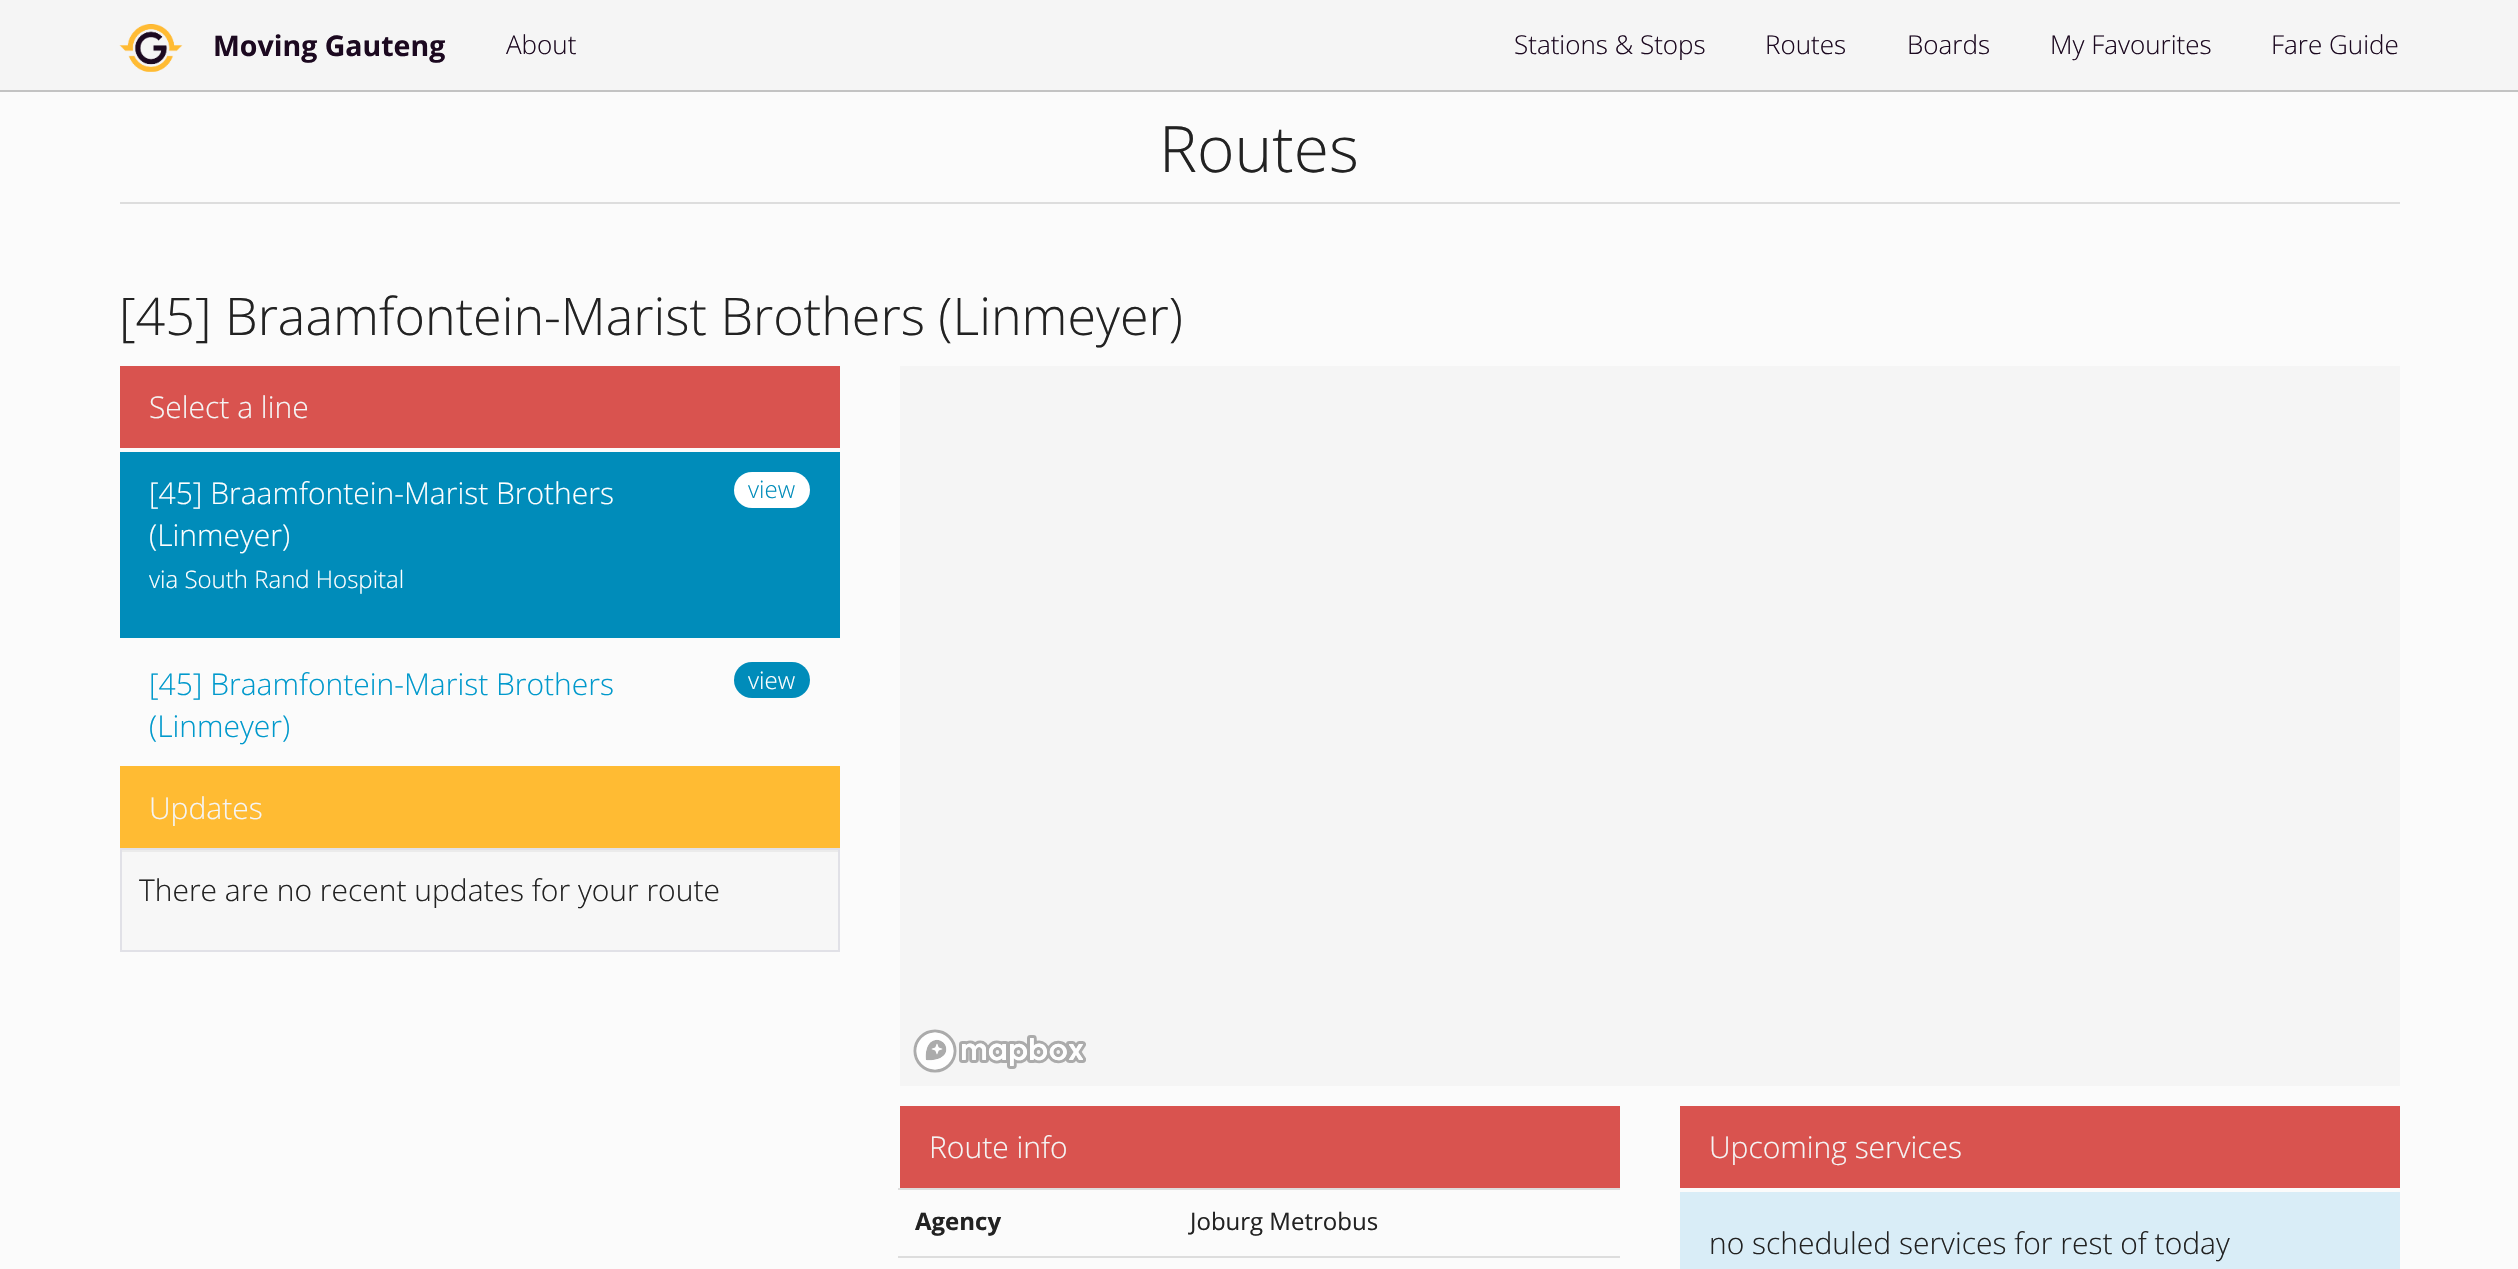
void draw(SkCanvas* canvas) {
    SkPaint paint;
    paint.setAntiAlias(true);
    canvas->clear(0xFFFBFBFB);
    paint.setColor(0xFFF5F5F5);
    canvas->drawRect(SkRect::MakeXYWH(0, 0, 2518, 90), paint);
    paint.setColor(0xFFC3C3C3);
    canvas->drawRect(SkRect::MakeXYWH(0, 90, 2518, 2), paint);
    canvas->drawImageRect(SkImages::DeferredFromEncodedData(SkData::MakeFromFileName("img1.png")), SkRect::MakeXYWH(119, 24, 64, 48), SkSamplingOptions());
    SkFont font1(fontMgr->matchFamilyStyle("Open Sans", SkFontStyle::Bold()), 28.5f);
    font1.setSubpixel(true);
    paint.setColor(0xFF1C0920);
    canvas->drawString("Moving Gauteng", 213, 56, font1, paint);
    SkFont font2(fontMgr->matchFamilyStyle("Open Sans", SkFontStyle(300, SkFontStyle::kNormal_Width, SkFontStyle::kUpright_Slant)), 26);
    font2.setSubpixel(true);
    canvas->drawString("About", 506, 54, font2, paint);
    canvas->drawString("Stations & Stops", 1514, 54, font2, paint);
    canvas->drawString("Routes", 1765, 54, font2, paint);
    canvas->drawString("Boards", 1907, 54, font2, paint);
    canvas->drawString("My Favourites", 2050, 54, font2, paint);
    canvas->drawString("Fare Guide", 2271, 54, font2, paint);
    paint.setColor(0xFFDDDDDD);
    canvas->drawRect(SkRect::MakeXYWH(120, 202, 2280, 2), paint);
    SkFont font3(fontMgr->matchFamilyStyle("Open Sans", SkFontStyle(300, SkFontStyle::kNormal_Width, SkFontStyle::kUpright_Slant)), 64);
    font3.setSubpixel(true);
    paint.setColor(0xFF222222);
    canvas->drawString("Routes", 1159, 172, font3, paint);
    SkFont font4(fontMgr->matchFamilyStyle("Open Sans", SkFontStyle(300, SkFontStyle::kNormal_Width, SkFontStyle::kUpright_Slant)), 52);
    font4.setSubpixel(true);
    canvas->drawString("[45] Braamfontein-Marist Brothers (Linmeyer)", 119, 335, font4, paint);
    paint.setColor(0xFFD9534F);
    canvas->drawRect(SkRect::MakeXYWH(120, 366, 720, 82), paint);
    SkFont font5(fontMgr->matchFamilyStyle("Open Sans", SkFontStyle(300, SkFontStyle::kNormal_Width, SkFontStyle::kUpright_Slant)), 30);
    font5.setSubpixel(true);
    paint.setColor(0xFFF5F5F5);
    canvas->drawString("Select a line", 149, 418, font5, paint);
    paint.setColor(0xFF008CBA);
    canvas->drawRect(SkRect::MakeXYWH(120, 452, 720, 186), paint);
    paint.setColor(0xFFFFFFFF);
    canvas->drawString("[45] Braamfontein-Marist Brothers", 149, 504, font5, paint);
    canvas->drawString("(Linmeyer)", 149, 546, font5, paint);
    canvas->drawRoundRect(SkRect::MakeXYWH(734, 472, 76, 36), 18, 18, paint);
    SkFont font6(fontMgr->matchFamilyStyle("Open Sans", SkFontStyle(300, SkFontStyle::kNormal_Width, SkFontStyle::kUpright_Slant)), 24);
    font6.setSubpixel(true);
    paint.setColor(0xFF008CBA);
    canvas->drawString("view", 748, 498, font6, paint);
    paint.setColor(0xFFFFFFFF);
    canvas->drawString("via South Rand Hospital", 149, 588, font6, paint);
    paint.setColor(0xFF0099CC);
    canvas->drawString("[45] Braamfontein-Marist Brothers", 149, 695, font5, paint);
    canvas->drawString("(Linmeyer)", 149, 737, font5, paint);
    paint.setColor(0xFF008CBA);
    canvas->drawRoundRect(SkRect::MakeXYWH(734, 662, 76, 36), 18, 18, paint);
    paint.setColor(0xFFFFFFFF);
    canvas->drawString("view", 748, 689, font6, paint);
    paint.setColor(0xFFFFBB33);
    canvas->drawRect(SkRect::MakeXYWH(120, 766, 720, 82), paint);
    paint.setColor(0xFFF5F5F5);
    canvas->drawString("Updates", 149, 819, font5, paint);
    paint.setColor(0xFFF7F7F7);
    canvas->drawRect(SkRect::MakeXYWH(122, 852, 716, 98), paint);
    paint.setColor(0xFFEBEBEB);
    canvas->drawRect(SkRect::MakeXYWH(122, 850, 716, 2), paint);
    paint.setStyle(SkPaint::kStroke_Style);
    paint.setStrokeWidth(2);
    paint.setColor(0xFFE1E1E7);
    canvas->drawRect(SkRect::MakeXYWH(121, 849, 718, 102), paint);
    paint.setStyle(SkPaint::kFill_Style);
    paint.setColor(0xFF222222);
    canvas->drawString("There are no recent updates for your route", 139, 901, font5, paint);
    paint.setColor(0xFFF5F5F5);
    canvas->drawRect(SkRect::MakeXYWH(900, 366, 1500, 720), paint);
    canvas->drawImageRect(SkImages::DeferredFromEncodedData(SkData::MakeFromFileName("img2.png")), SkRect::MakeXYWH(913, 1029, 173, 44), SkSamplingOptions());
    paint.setColor(0xFFD9534F);
    canvas->drawRect(SkRect::MakeXYWH(900, 1106, 720, 82), paint);
    paint.setColor(0xFFF5F5F5);
    canvas->drawString("Route info", 929, 1158, font5, paint);
    SkFont font7(fontMgr->matchFamilyStyle("Open Sans", SkFontStyle::Bold()), 24);
    font7.setSubpixel(true);
    paint.setColor(0xFF222222);
    canvas->drawString("Agency", 915, 1230, font7, paint);
    paint.setColor(0xFFDDDDDD);
    canvas->drawRect(SkRect::MakeXYWH(898, 1188, 722, 2), paint);
    SkFont font8(fontMgr->matchFamilyStyle("Open Sans", SkFontStyle::Normal()), 24);
    font8.setSubpixel(true);
    paint.setColor(0xFF222222);
    canvas->drawString("Joburg Metrobus", 1190, 1230, font8, paint);
    paint.setColor(0xFFDDDDDD);
    canvas->drawRect(SkRect::MakeXYWH(898, 1256, 722, 2), paint);
    paint.setColor(0xFFD9534F);
    canvas->drawRect(SkRect::MakeXYWH(1680, 1106, 720, 82), paint);
    paint.setColor(0xFFF5F5F5);
    canvas->drawString("Upcoming services", 1709, 1158, font5, paint);
    paint.setColor(0xFFD9EDF7);
    canvas->drawRect(SkRect::MakeXYWH(1680, 1192, 720, 77), paint);
    paint.setColor(0xFF222222);
    canvas->drawString("no scheduled services for rest of today", 1709, 1254, font5, paint);
}
